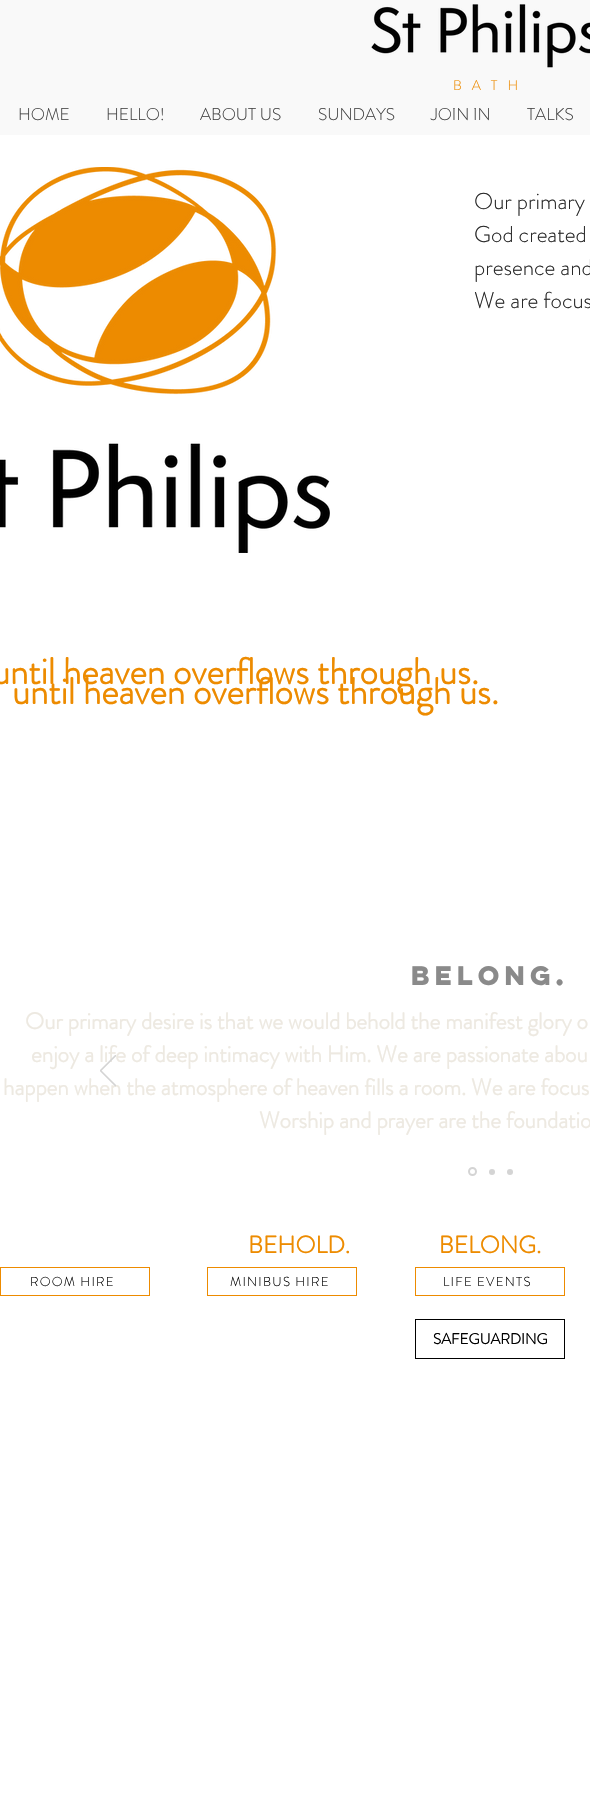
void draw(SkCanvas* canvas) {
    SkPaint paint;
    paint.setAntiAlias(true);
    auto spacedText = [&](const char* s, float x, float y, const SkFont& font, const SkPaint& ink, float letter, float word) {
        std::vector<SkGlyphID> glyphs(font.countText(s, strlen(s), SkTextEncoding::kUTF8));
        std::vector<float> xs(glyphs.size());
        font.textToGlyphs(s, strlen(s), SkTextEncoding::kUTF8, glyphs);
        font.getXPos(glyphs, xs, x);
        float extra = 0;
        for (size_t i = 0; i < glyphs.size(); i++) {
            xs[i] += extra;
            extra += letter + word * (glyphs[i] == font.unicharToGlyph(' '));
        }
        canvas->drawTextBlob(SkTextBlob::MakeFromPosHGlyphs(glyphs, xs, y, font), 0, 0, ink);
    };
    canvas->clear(0xFFFFFFFF);
    paint.setColor(0xFFF9F9F9);
    canvas->drawRect(SkRect::MakeXYWH(0, 0, 590, 135), paint);
    canvas->drawImageRect(SkImages::DeferredFromEncodedData(SkData::MakeFromFileName("img1.png")), SkRect::MakeXYWH(371, 4, 219, 64), SkSamplingOptions());
    SkFont font1(fontMgr->matchFamilyStyle("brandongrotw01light", SkFontStyle(300, SkFontStyle::kNormal_Width, SkFontStyle::kUpright_Slant)), 14);
    font1.setSubpixel(true);
    paint.setColor(0xFFED8B00);
    spacedText("BATH", 453, 90, font1, paint, 10, 0);
    SkFont font2(fontMgr->matchFamilyStyle("brandongrotw01light", SkFontStyle(300, SkFontStyle::kNormal_Width, SkFontStyle::kUpright_Slant)), 17);
    font2.setSubpixel(true);
    paint.setColor(0xFF444444);
    canvas->drawString("HOME", 18, 120, font2, paint);
    canvas->drawString("HELLO!", 106, 120, font2, paint);
    canvas->drawString("ABOUT US", 200, 120, font2, paint);
    canvas->drawString("SUNDAYS", 318, 120, font2, paint);
    canvas->drawString("JOIN IN", 431, 120, font2, paint);
    canvas->drawString("TALKS", 527, 120, font2, paint);
    canvas->drawImageRect(SkImages::DeferredFromEncodedData(SkData::MakeFromFileName("img2.png")), SkRect::MakeXYWH(0, 167, 330, 386), SkSamplingOptions());
    SkFont font3(fontMgr->matchFamilyStyle("brandongrotw01light", SkFontStyle(300, SkFontStyle::kNormal_Width, SkFontStyle::kUpright_Slant)), 23);
    font3.setSubpixel(true);
    paint.setColor(0xFF292929);
    canvas->drawString("Our primary", 474, 209, font3, paint);
    canvas->drawString("God created", 474, 242, font3, paint);
    canvas->drawString("presence and", 474, 275, font3, paint);
    canvas->drawString("We are focus", 474, 308, font3, paint);
    SkFont font4(fontMgr->matchFamilyStyle("brandongrotw01light", SkFontStyle::Bold()), 37);
    font4.setSubpixel(true);
    paint.setColor(0xFFED8B00);
    canvas->drawString("until heaven overflows through us.", -8, 684, font4, paint);
    canvas->drawString("until heaven overflows through us.", 12, 704, font4, paint);
    SkFont font5(fontMgr->matchFamilyStyle("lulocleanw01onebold", SkFontStyle::Bold()), 24);
    font5.setSubpixel(true);
    paint.setColor(0xFF8A8A8A);
    canvas->drawString("Belong.", 411, 985, font5, paint);
    SkFont font6(fontMgr->matchFamilyStyle("brandongrotw01light", SkFontStyle::Bold()), 23);
    font6.setSubpixel(true);
    paint.setColor(0xFFEDE9E1);
    canvas->drawString("Our primary desire is that we would behold the manifest glory o", 25, 1029, font6, paint);
    canvas->drawString("enjoy a life of deep intimacy with Him. We are passionate abou", 31, 1062, font6, paint);
    canvas->drawString("happen when the atmosphere of heaven fills a room. We are focus", 3, 1095, font6, paint);
    canvas->drawString("Worship and prayer are the foundatio", 259, 1128, font6, paint);
    canvas->drawImageRect(SkImages::DeferredFromEncodedData(SkData::MakeFromFileName("img3.png")), SkRect::MakeXYWH(100, 1055, 16, 32), SkSamplingOptions());
    paint.setStyle(SkPaint::kStroke_Style);
    paint.setStrokeWidth(2);
    paint.setColor(0xFFD4D4D4);
    canvas->drawCircle(472.5f, 1171.5f, 3.5f, paint);
    paint.setStyle(SkPaint::kFill_Style);
    canvas->drawCircle(492, 1172, 3, paint);
    canvas->drawCircle(510, 1172, 3, paint);
    SkFont font7(fontMgr->matchFamilyStyle("brandongrotw01light", SkFontStyle::Bold()), 24);
    font7.setSubpixel(true);
    paint.setColor(0xFFED8B00);
    canvas->drawString("BEHOLD.                 BELONG.", 248, 1253, font7, paint);
    paint.setStyle(SkPaint::kStroke_Style);
    paint.setStrokeWidth(1);
    canvas->drawRect(SkRect::MakeXYWH(0.5f, 1267.5f, 149, 28), paint);
    SkFont font8(fontMgr->matchFamilyStyle("brandongrotw01light", SkFontStyle(300, SkFontStyle::kNormal_Width, SkFontStyle::kUpright_Slant)), 13);
    font8.setSubpixel(true);
    paint.setStyle(SkPaint::kFill_Style);
    paint.setColor(0xFF000000);
    spacedText("ROOM HIRE", 30, 1286, font8, paint, 1.25f, 0);
    paint.setStyle(SkPaint::kStroke_Style);
    paint.setColor(0xFFED8B00);
    canvas->drawRect(SkRect::MakeXYWH(207.5f, 1267.5f, 149, 28), paint);
    paint.setStyle(SkPaint::kFill_Style);
    paint.setColor(0xFF000000);
    spacedText("MINIBUS HIRE", 230, 1286, font8, paint, 1.25f, 0);
    paint.setStyle(SkPaint::kStroke_Style);
    paint.setColor(0xFFED8B00);
    canvas->drawRect(SkRect::MakeXYWH(415.5f, 1267.5f, 149, 28), paint);
    paint.setStyle(SkPaint::kFill_Style);
    paint.setColor(0xFF000000);
    spacedText("LIFE EVENTS", 443, 1286, font8, paint, 1.25f, 0);
    paint.setStyle(SkPaint::kStroke_Style);
    canvas->drawRect(SkRect::MakeXYWH(415.5f, 1319.5f, 149, 39), paint);
    SkFont font9(fontMgr->matchFamilyStyle("brandongrotw01light", SkFontStyle::Bold()), 15);
    font9.setSubpixel(true);
    paint.setStyle(SkPaint::kFill_Style);
    canvas->drawString("SAFEGUARDING", 433, 1344, font9, paint);
}
